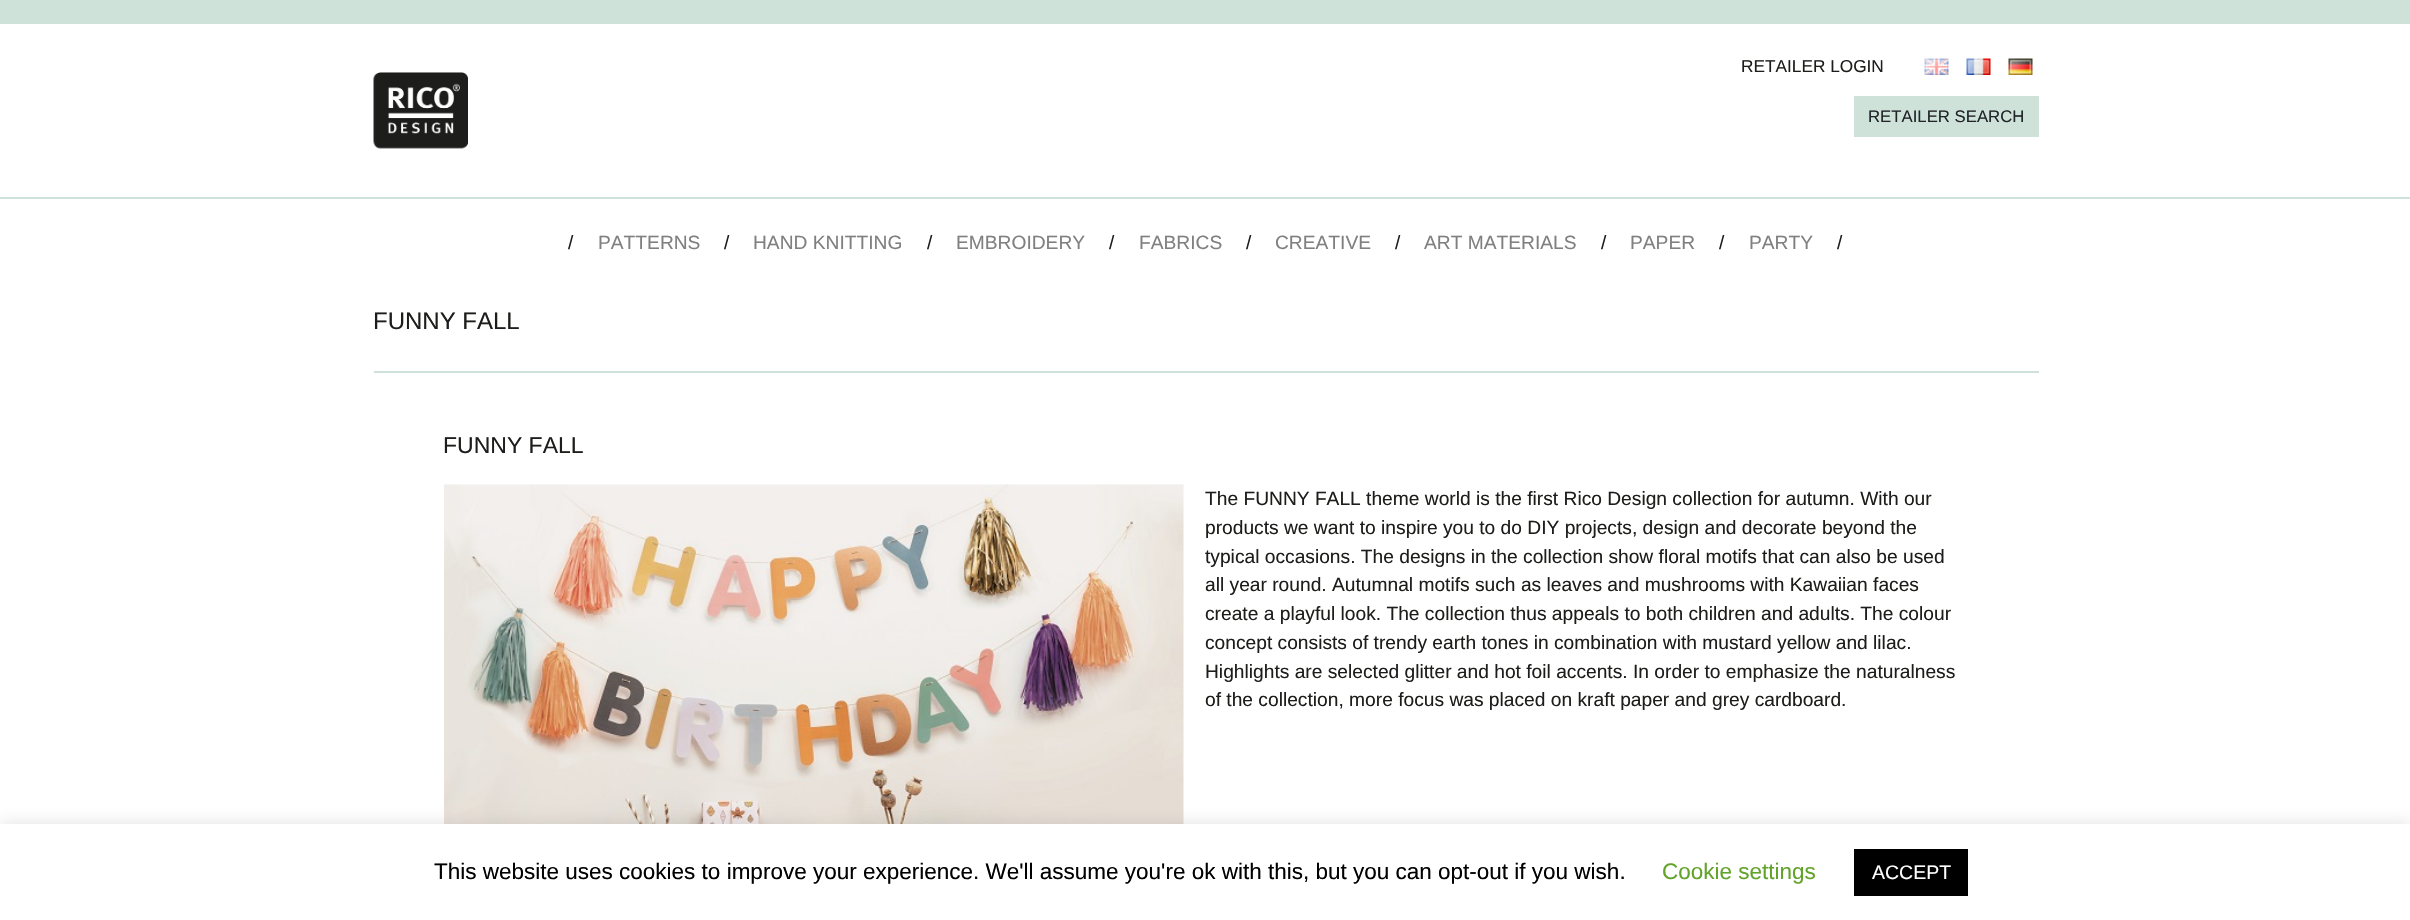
void draw(SkCanvas* canvas) {
    SkPaint paint;
    paint.setAntiAlias(true);
    canvas->clear(0xFFFFFFFF);
    paint.setColor(0xFFCFE2DA);
    canvas->drawRect(SkRect::MakeXYWH(0, 0, 2410, 24), paint);
    canvas->drawRect(SkRect::MakeXYWH(0, 197, 2410, 2), paint);
    SkFont font1(fontMgr->matchFamilyStyle("Liberation Sans", SkFontStyle::Normal()), 17.25f);
    font1.setSubpixel(true);
    paint.setColor(0xFF1D1D1B);
    canvas->drawString("RETAILER LOGIN", 1741, 72, font1, paint);
    canvas->drawImageRect(SkImages::DeferredFromEncodedData(SkData::MakeFromFileName("img1.png")), SkRect::MakeXYWH(1924, 58, 25, 17), SkSamplingOptions());
    canvas->drawImageRect(SkImages::DeferredFromEncodedData(SkData::MakeFromFileName("img2.png")), SkRect::MakeXYWH(1966, 58, 25, 17), SkSamplingOptions());
    canvas->drawImageRect(SkImages::DeferredFromEncodedData(SkData::MakeFromFileName("img3.png")), SkRect::MakeXYWH(2008, 58, 25, 17), SkSamplingOptions());
    canvas->drawImageRect(SkImages::DeferredFromEncodedData(SkData::MakeFromFileName("img4.png")), SkRect::MakeXYWH(373, 72, 95, 77), SkSamplingOptions());
    paint.setColor(0xFFCFE2DA);
    canvas->drawRect(SkRect::MakeXYWH(1854, 96, 185, 41), paint);
    SkFont font2(fontMgr->matchFamilyStyle("Liberation Sans", SkFontStyle::Normal()), 16.75f);
    font2.setSubpixel(true);
    paint.setColor(0xFF212529);
    canvas->drawString("RETAILER SEARCH", 1868, 122, font2, paint);
    SkFont font3(fontMgr->matchFamilyStyle("Liberation Sans", SkFontStyle::Normal()), 19.2f);
    font3.setSubpixel(true);
    paint.setColor(0xFF1D1D1B);
    canvas->drawString("/", 568, 249, font3, paint);
    paint.setColor(0xFF808080);
    canvas->drawString("PATTERNS", 598, 249, font3, paint);
    paint.setColor(0xFF1D1D1B);
    canvas->drawString("/", 724, 249, font3, paint);
    paint.setColor(0xFF808080);
    canvas->drawString("HAND KNITTING", 753, 249, font3, paint);
    paint.setColor(0xFF1D1D1B);
    canvas->drawString("/", 927, 249, font3, paint);
    paint.setColor(0xFF808080);
    canvas->drawString("EMBROIDERY", 956, 249, font3, paint);
    paint.setColor(0xFF1D1D1B);
    canvas->drawString("/", 1109, 249, font3, paint);
    paint.setColor(0xFF808080);
    canvas->drawString("FABRICS", 1139, 249, font3, paint);
    paint.setColor(0xFF1D1D1B);
    canvas->drawString("/", 1246, 249, font3, paint);
    paint.setColor(0xFF808080);
    canvas->drawString("CREATIVE", 1275, 249, font3, paint);
    paint.setColor(0xFF1D1D1B);
    canvas->drawString("/", 1395, 249, font3, paint);
    paint.setColor(0xFF808080);
    canvas->drawString("ART MATERIALS", 1424, 249, font3, paint);
    paint.setColor(0xFF1D1D1B);
    canvas->drawString("/", 1601, 249, font3, paint);
    paint.setColor(0xFF808080);
    canvas->drawString("PAPER", 1630, 249, font3, paint);
    paint.setColor(0xFF1D1D1B);
    canvas->drawString("/", 1719, 249, font3, paint);
    paint.setColor(0xFF808080);
    canvas->drawString("PARTY", 1749, 249, font3, paint);
    paint.setColor(0xFF1D1D1B);
    canvas->drawString("/", 1837, 249, font3, paint);
    paint.setColor(0xFFCFE2DA);
    canvas->drawRect(SkRect::MakeXYWH(374, 371, 1665, 2), paint);
    SkFont font4(fontMgr->matchFamilyStyle("Liberation Sans", SkFontStyle::Normal()), 24);
    font4.setSubpixel(true);
    paint.setColor(0xFF1D1D1B);
    canvas->drawString("FUNNY FALL", 373, 329, font4, paint);
    SkFont font5(fontMgr->matchFamilyStyle("Liberation Sans", SkFontStyle::Normal()), 23);
    font5.setSubpixel(true);
    canvas->drawString("FUNNY FALL", 443, 453, font5, paint);
    canvas->drawImageRect(SkImages::DeferredFromEncodedData(SkData::MakeFromFileName("img5.png")), SkRect::MakeXYWH(444, 484, 740, 340), SkSamplingOptions());
    canvas->drawString("The FUNNY FALL theme world is the first Rico Design collection for autumn. With our", 1205, 505, font3, paint);
    canvas->drawString("products we want to inspire you to do DIY projects, design and decorate beyond the", 1205, 534, font3, paint);
    canvas->drawString("typical occasions. The designs in the collection show floral motifs that can also be used", 1205, 563, font3, paint);
    canvas->drawString("all year round. Autumnal motifs such as leaves and mushrooms with Kawaiian faces", 1205, 591, font3, paint);
    canvas->drawString("create a playful look. The collection thus appeals to both children and adults. The colour", 1205, 620, font3, paint);
    canvas->drawString("concept consists of trendy earth tones in combination with mustard yellow and lilac.", 1205, 649, font3, paint);
    canvas->drawString("Highlights are selected glitter and hot foil accents. In order to emphasize the naturalness", 1205, 678, font3, paint);
    canvas->drawString("of the collection, more focus was placed on kraft paper and grey cardboard.", 1205, 706, font3, paint);
    paint.setColor(0x4DACABAB);
    paint.setMaskFilter(SkMaskFilter::MakeBlur(kNormal_SkBlurStyle, 7.5f));
    canvas->drawRect(SkRect::MakeXYWH(0, 822, 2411, 98), paint);
    paint.setMaskFilter(nullptr);
    paint.setColor(0xFFFFFFFF);
    canvas->drawRect(SkRect::MakeXYWH(0, 824, 2410, 96), paint);
    SkFont font6(fontMgr->matchFamilyStyle("Liberation Sans", SkFontStyle::Normal()), 22.5f);
    font6.setSubpixel(true);
    paint.setColor(0xFF000000);
    canvas->drawString("This website uses cookies to improve your experience. We'll assume you're ok with this, but you can opt-out if you wish.", 434, 879, font6, paint);
    paint.setColor(0xFF62A329);
    canvas->drawString("Cookie settings", 1662, 879, font6, paint);
    paint.setColor(0xFF000000);
    canvas->drawRect(SkRect::MakeXYWH(1854, 849, 114, 47), paint);
    SkFont font7(fontMgr->matchFamilyStyle("Liberation Sans", SkFontStyle::Normal()), 19.5f);
    font7.setSubpixel(true);
    paint.setColor(0xFFFFFFFF);
    canvas->drawString("ACCEPT", 1872, 879, font7, paint);
}
